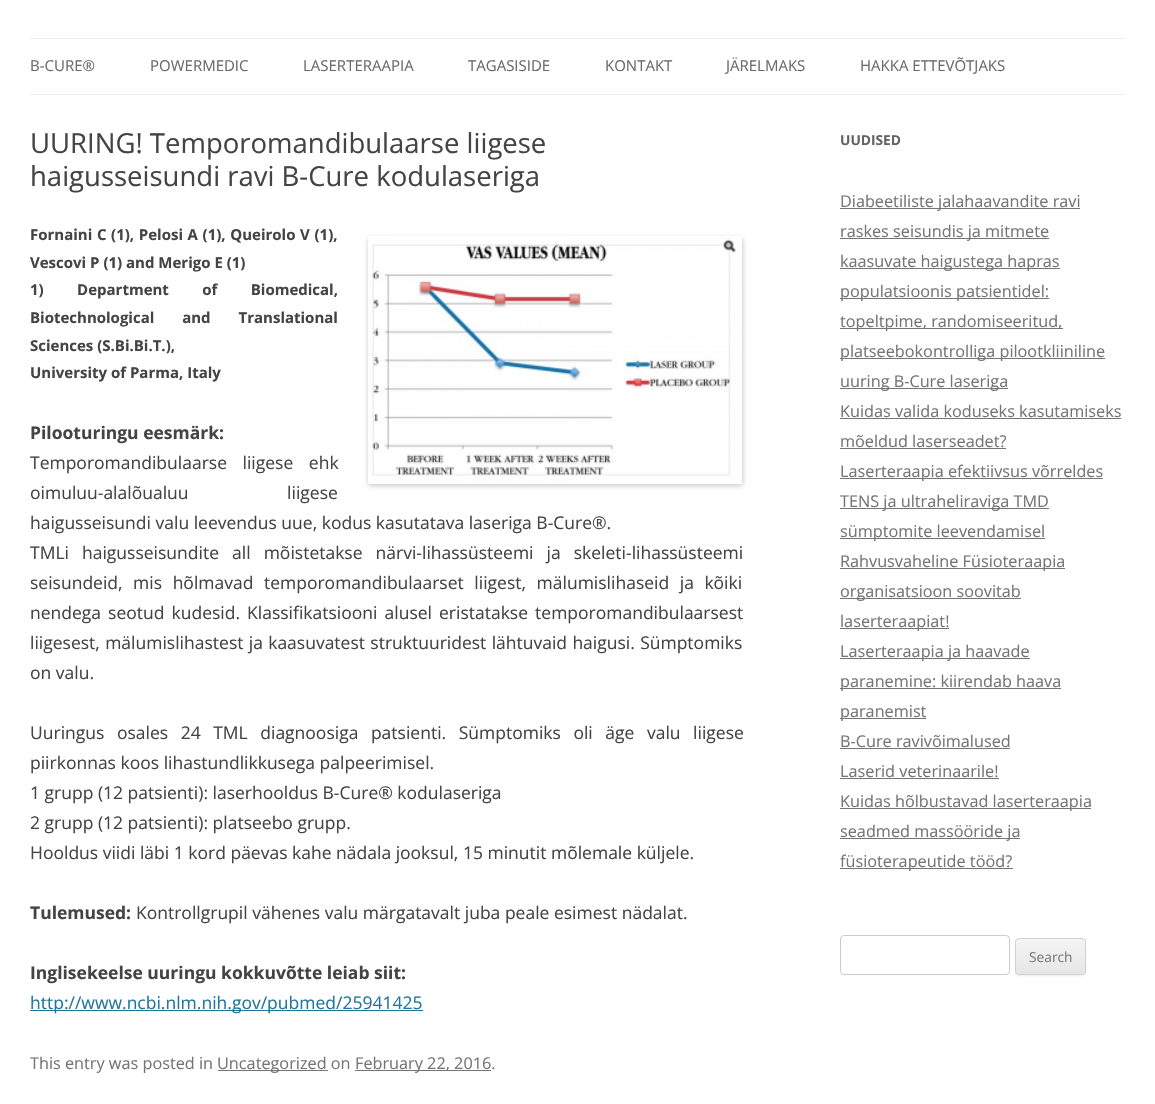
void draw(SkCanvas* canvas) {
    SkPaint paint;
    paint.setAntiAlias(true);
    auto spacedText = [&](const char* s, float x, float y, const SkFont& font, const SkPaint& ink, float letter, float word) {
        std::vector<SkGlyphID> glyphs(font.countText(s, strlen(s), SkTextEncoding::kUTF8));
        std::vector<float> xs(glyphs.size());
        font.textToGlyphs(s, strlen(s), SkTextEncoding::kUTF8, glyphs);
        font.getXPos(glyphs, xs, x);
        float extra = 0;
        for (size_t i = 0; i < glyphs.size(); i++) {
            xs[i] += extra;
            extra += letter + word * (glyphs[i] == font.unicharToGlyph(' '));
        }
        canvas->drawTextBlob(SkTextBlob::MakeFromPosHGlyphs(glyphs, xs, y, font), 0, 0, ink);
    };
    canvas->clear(0xFFFFFFFF);
    paint.setColor(0xFFEDEDED);
    canvas->drawRect(SkRect::MakeXYWH(30, 38, 1095, 1), paint);
    canvas->drawRect(SkRect::MakeXYWH(30, 94, 1095, 1), paint);
    SkFont font1(fontMgr->matchFamilyStyle("Open Sans", SkFontStyle::Normal()), 15);
    font1.setSubpixel(true);
    paint.setColor(0xFF6A6A6A);
    canvas->drawString("B-CURE®", 30, 71, font1, paint);
    canvas->drawString("POWERMEDIC", 150, 71, font1, paint);
    canvas->drawString("LASERTERAAPIA", 303, 71, font1, paint);
    canvas->drawString("TAGASISIDE", 468, 71, font1, paint);
    canvas->drawString("KONTAKT", 605, 71, font1, paint);
    canvas->drawString("JÄRELMAKS", 726, 71, font1, paint);
    canvas->drawString("HAKKA ETTEVÕTJAKS", 860, 71, font1, paint);
    SkFont font2(fontMgr->matchFamilyStyle("Open Sans", SkFontStyle::Normal()), 27.5f);
    font2.setSubpixel(true);
    paint.setColor(0xFF444444);
    canvas->drawString("UURING! Temporomandibulaarse liigese", 30, 153, font2, paint);
    canvas->drawString("haigusseisundi ravi B-Cure kodulaseriga", 30, 186, font2, paint);
    SkFont font3(fontMgr->matchFamilyStyle("Open Sans", SkFontStyle::Bold()), 15);
    font3.setSubpixel(true);
    spacedText("Fornaini C (1), Pelosi A (1), Queirolo V (1),", 30, 240, font3, paint, 0, 0.75f);
    paint.setColor(0x33000000);
    paint.setMaskFilter(SkMaskFilter::MakeBlur(kNormal_SkBlurStyle, 2.5f));
    canvas->drawRoundRect(SkRect::MakeXYWH(368, 238, 375, 248), 4, 4, paint);
    paint.setMaskFilter(nullptr);
    canvas->drawImageRect(SkImages::DeferredFromEncodedData(SkData::MakeFromFileName("img1.png")), SkRect::MakeXYWH(368, 236, 374, 248), SkSamplingOptions());
    paint.setColor(0xFF444444);
    canvas->drawString("Vescovi P (1) and Merigo E (1)", 30, 268, font3, paint);
    spacedText("1) Department of Biomedical,", 30, 295, font3, paint, 0, 29.5f);
    spacedText("Biotechnological and Translational", 30, 323, font3, paint, 0, 24);
    canvas->drawString("Sciences (S.Bi.Bi.T.),", 30, 351, font3, paint);
    canvas->drawString("University of Parma, Italy", 30, 378, font3, paint);
    SkFont font4(fontMgr->matchFamilyStyle("Open Sans", SkFontStyle::Bold()), 17.5f);
    font4.setSubpixel(true);
    canvas->drawString("Pilooturingu eesmärk:", 30, 439, font4, paint);
    SkFont font5(fontMgr->matchFamilyStyle("Open Sans", SkFontStyle::Normal()), 17.5f);
    font5.setSubpixel(true);
    spacedText("Temporomandibulaarse liigese ehk", 30, 469, font5, paint, 0, 11);
    spacedText("oimuluu-alalõualuu liigese", 30, 499, font5, paint, 0, 94);
    canvas->drawString("haigusseisundi valu leevendus uue, kodus kasutatava laseriga B-Cure®.", 30, 529, font5, paint);
    spacedText("TMLi haigusseisundite all mõistetakse närvi-lihassüsteemi ja skeleti-lihassüsteemi", 30, 559, font5, paint, 0, 8.5f);
    spacedText("seisundeid, mis hõlmavad temporomandibulaarset liigest, mälumislihaseid ja kõiki", 30, 589, font5, paint, 0, 6);
    spacedText("nendega seotud kudesid. Klassifikatsiooni alusel eristatakse temporomandibulaarsest", 30, 619, font5, paint, 0, 2.5f);
    spacedText("liigesest, mälumislihastest ja kaasuvatest struktuuridest lähtuvaid haigusi. Sümptomiks", 30, 649, font5, paint, 0, 0.75f);
    canvas->drawString("on valu.", 30, 679, font5, paint);
    spacedText("Uuringus osales 24 TML diagnoosiga patsienti. Sümptomiks oli äge valu liigese", 30, 739, font5, paint, 0, 8);
    canvas->drawString("piirkonnas koos lihastundlikkusega palpeerimisel.", 30, 769, font5, paint);
    canvas->drawString("1 grupp (12 patsienti): laserhooldus B-Cure® kodulaseriga", 30, 799, font5, paint);
    canvas->drawString("2 grupp (12 patsienti): platseebo grupp.", 30, 829, font5, paint);
    canvas->drawString("Hooldus viidi läbi 1 kord päevas kahe nädala jooksul, 15 minutit mõlemale küljele.", 30, 859, font5, paint);
    canvas->drawString("Tulemused:", 30, 919, font4, paint);
    canvas->drawString("Kontrollgrupil vähenes valu märgatavalt juba peale esimest nädalat.", 136, 919, font5, paint);
    canvas->drawString("Inglisekeelse uuringu kokkuvõtte leiab siit:", 30, 979, font4, paint);
    paint.setColor(0xFF21759B);
    canvas->drawRect(SkRect::MakeXYWH(30, 1010, 393, 1), paint);
    canvas->drawString("http://www.ncbi.nlm.nih.gov/pubmed/25941425", 30, 1009, font5, paint);
    SkFont font6(fontMgr->matchFamilyStyle("Open Sans", SkFontStyle::Normal()), 16.25f);
    font6.setSubpixel(true);
    paint.setColor(0xFF757575);
    canvas->drawString("This entry was posted in", 30, 1069, font6, paint);
    canvas->drawRect(SkRect::MakeXYWH(218, 1070, 110, 1), paint);
    canvas->drawString("Uncategorized on", 217, 1069, font6, paint);
    canvas->drawRect(SkRect::MakeXYWH(355, 1070, 136, 1), paint);
    canvas->drawString("February 22, 2016.", 355, 1069, font6, paint);
    SkFont font7(fontMgr->matchFamilyStyle("Open Sans", SkFontStyle::Bold()), 13.75f);
    font7.setSubpixel(true);
    paint.setColor(0xFF636363);
    canvas->drawString("UUDISED", 840, 145, font7, paint);
    paint.setColor(0xFF757575);
    canvas->drawRect(SkRect::MakeXYWH(840, 208, 240, 1), paint);
    canvas->drawString("Diabeetiliste jalahaavandite ravi", 840, 207, font6, paint);
    canvas->drawRect(SkRect::MakeXYWH(840, 238, 209, 1), paint);
    canvas->drawString("raskes seisundis ja mitmete", 840, 237, font6, paint);
    canvas->drawRect(SkRect::MakeXYWH(840, 268, 220, 1), paint);
    canvas->drawString("kaasuvate haigustega hapras", 840, 267, font6, paint);
    canvas->drawRect(SkRect::MakeXYWH(840, 298, 209, 1), paint);
    canvas->drawString("populatsioonis patsientidel:", 840, 297, font6, paint);
    canvas->drawRect(SkRect::MakeXYWH(840, 328, 223, 1), paint);
    canvas->drawString("topeltpime, randomiseeritud,", 840, 327, font6, paint);
    canvas->drawRect(SkRect::MakeXYWH(840, 358, 265, 1), paint);
    canvas->drawString("platseebokontrolliga pilootkliiniline", 840, 357, font6, paint);
    canvas->drawRect(SkRect::MakeXYWH(840, 388, 168, 1), paint);
    canvas->drawString("uuring B-Cure laseriga", 840, 387, font6, paint);
    canvas->drawString("Kuidas valida koduseks kasutamiseks", 840, 417, font6, paint);
    canvas->drawRect(SkRect::MakeXYWH(840, 418, 281, 1), paint);
    canvas->drawString("mõeldud laserseadet?", 840, 447, font6, paint);
    canvas->drawRect(SkRect::MakeXYWH(840, 448, 166, 1), paint);
    canvas->drawRect(SkRect::MakeXYWH(840, 478, 263, 1), paint);
    canvas->drawString("Laserteraapia efektiivsus võrreldes", 840, 477, font6, paint);
    canvas->drawRect(SkRect::MakeXYWH(840, 508, 209, 1), paint);
    canvas->drawString("TENS ja ultraheliraviga TMD", 840, 507, font6, paint);
    canvas->drawRect(SkRect::MakeXYWH(840, 538, 205, 1), paint);
    canvas->drawString("sümptomite leevendamisel", 840, 537, font6, paint);
    canvas->drawRect(SkRect::MakeXYWH(840, 568, 225, 1), paint);
    canvas->drawString("Rahvusvaheline Füsioteraapia", 840, 567, font6, paint);
    canvas->drawRect(SkRect::MakeXYWH(840, 598, 181, 1), paint);
    canvas->drawString("organisatsioon soovitab", 840, 597, font6, paint);
    canvas->drawRect(SkRect::MakeXYWH(840, 628, 109, 1), paint);
    canvas->drawString("laserteraapiat!", 840, 627, font6, paint);
    canvas->drawRect(SkRect::MakeXYWH(840, 658, 190, 1), paint);
    canvas->drawString("Laserteraapia ja haavade", 840, 657, font6, paint);
    canvas->drawRect(SkRect::MakeXYWH(840, 688, 221, 1), paint);
    canvas->drawString("paranemine: kiirendab haava", 840, 687, font6, paint);
    canvas->drawRect(SkRect::MakeXYWH(840, 718, 86, 1), paint);
    canvas->drawString("paranemist", 840, 717, font6, paint);
    canvas->drawString("B-Cure ravivõimalused", 840, 747, font6, paint);
    canvas->drawRect(SkRect::MakeXYWH(840, 748, 170, 1), paint);
    canvas->drawString("Laserid veterinaarile!", 840, 777, font6, paint);
    canvas->drawRect(SkRect::MakeXYWH(840, 778, 159, 1), paint);
    canvas->drawRect(SkRect::MakeXYWH(840, 808, 251, 1), paint);
    canvas->drawString("Kuidas hõlbustavad laserteraapia", 840, 807, font6, paint);
    canvas->drawRect(SkRect::MakeXYWH(840, 838, 180, 1), paint);
    canvas->drawString("seadmed massööride ja", 840, 837, font6, paint);
    canvas->drawRect(SkRect::MakeXYWH(840, 868, 173, 1), paint);
    canvas->drawString("füsioterapeutide tööd?", 840, 867, font6, paint);
    paint.setStyle(SkPaint::kStroke_Style);
    paint.setStrokeWidth(1);
    paint.setColor(0xFFCCCCCC);
    canvas->drawRoundRect(SkRect::MakeXYWH(840.5f, 935.5f, 169, 39), 3.5f, 3.5f, paint);
    paint.setStyle(SkPaint::kFill_Style);
    paint.setColor(0x1A404040);
    paint.setMaskFilter(SkMaskFilter::MakeBlur(kNormal_SkBlurStyle, 1));
    canvas->drawRoundRect(SkRect::MakeXYWH(1015, 939, 71, 37), 4, 4, paint);
    paint.setMaskFilter(nullptr);
    canvas->save();
    canvas->clipPath(SkPathBuilder().moveTo(1019, 938).lineTo(1082, 938).cubicTo(1084, 938, 1086, 940, 1086, 942).lineTo(1086, 971).cubicTo(1086, 973, 1084, 975, 1082, 975).lineTo(1019, 975).cubicTo(1017, 975, 1015, 973, 1015, 971).lineTo(1015, 942).cubicTo(1015, 940, 1017, 938, 1019, 938).close().detach(), true);
    {
        const SkColor colors[] = {0xFFF4F4F4, 0xFFE6E6E6};
        const float stops[] = {0, 1};
        const SkPoint ends[] = {{1051, 939}, {1051, 974}};
        paint.setShader(SkGradientShader::MakeLinear(ends, colors, stops, 2, SkTileMode::kClamp));
        paint.setAlpha(255);
    }
    canvas->drawRect(SkRect::MakeXYWH(1015, 939, 71, 35), paint);
    canvas->restore();
    paint.setStyle(SkPaint::kStroke_Style);
    paint.setShader(nullptr);
    paint.setColor(0xFFD2D2D2);
    canvas->drawRoundRect(SkRect::MakeXYWH(1015.5f, 938.5f, 70, 36), 3.5f, 3.5f, paint);
    SkFont font8(fontMgr->matchFamilyStyle("Open Sans", SkFontStyle::Normal()), 13.75f);
    font8.setSubpixel(true);
    paint.setStyle(SkPaint::kFill_Style);
    paint.setColor(0xFF7C7C7C);
    canvas->drawString("Search", 1029, 962, font8, paint);
}
